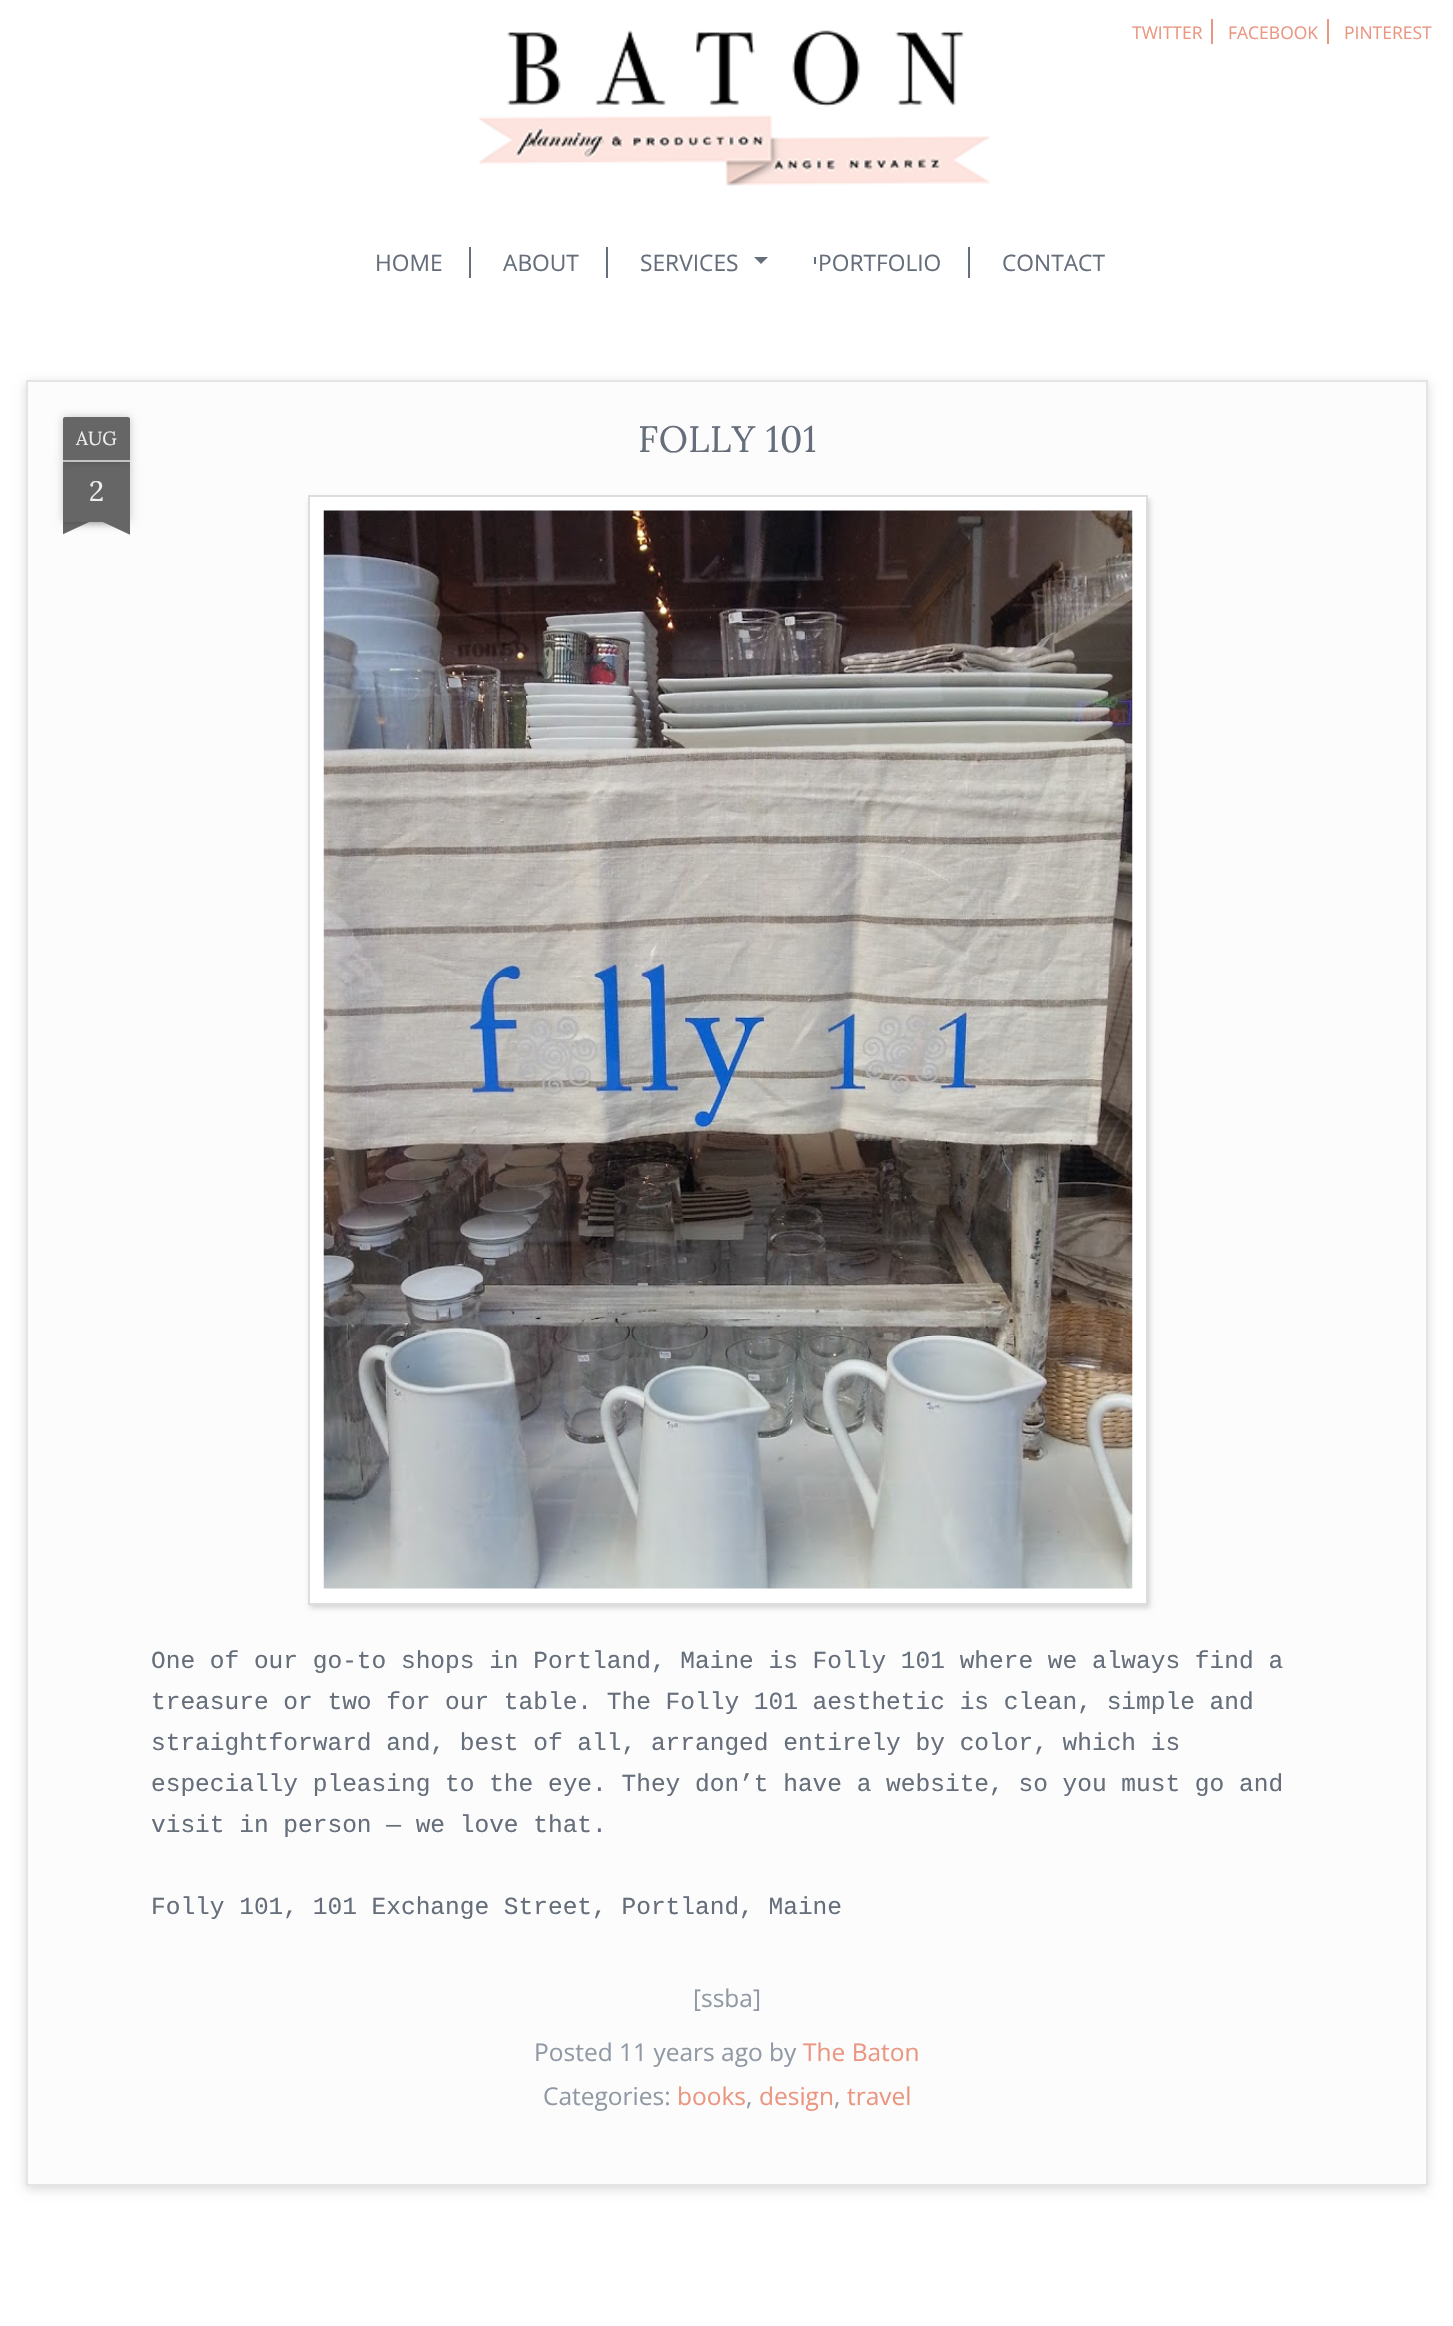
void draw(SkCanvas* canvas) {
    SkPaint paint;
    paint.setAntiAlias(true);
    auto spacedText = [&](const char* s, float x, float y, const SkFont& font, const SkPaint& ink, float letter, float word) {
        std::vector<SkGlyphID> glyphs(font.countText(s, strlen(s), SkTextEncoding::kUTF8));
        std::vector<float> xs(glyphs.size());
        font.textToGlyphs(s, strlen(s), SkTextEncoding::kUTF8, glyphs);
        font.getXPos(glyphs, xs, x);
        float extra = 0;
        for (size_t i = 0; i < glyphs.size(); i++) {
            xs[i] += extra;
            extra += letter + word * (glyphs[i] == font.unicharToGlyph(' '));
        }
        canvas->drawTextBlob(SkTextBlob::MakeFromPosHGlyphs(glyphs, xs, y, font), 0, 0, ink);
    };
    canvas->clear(0xFFFFFFFF);
    canvas->drawImageRect(SkImages::DeferredFromEncodedData(SkData::MakeFromFileName("img1.png")), SkRect::MakeXYWH(479, 30, 511, 156), SkSamplingOptions());
    SkFont font1(fontMgr->matchFamilyStyle("Open Sans", SkFontStyle::Normal()), 17.5f);
    font1.setSubpixel(true);
    paint.setColor(0xFFEA9680);
    canvas->drawString("TWITTER", 1132, 39, font1, paint);
    canvas->drawRect(SkRect::MakeXYWH(1211, 19, 2, 25), paint);
    canvas->drawString("FACEBOOK", 1228, 39, font1, paint);
    canvas->drawRect(SkRect::MakeXYWH(1327, 19, 2, 25), paint);
    canvas->drawString("PINTEREST", 1344, 39, font1, paint);
    SkFont font2(fontMgr->matchFamilyStyle("Open Sans", SkFontStyle::Normal()), 22.75f);
    font2.setSubpixel(true);
    paint.setColor(0xFF656E7A);
    canvas->drawString("HOME", 375, 271, font2, paint);
    canvas->drawRect(SkRect::MakeXYWH(469, 247, 2, 31), paint);
    canvas->drawString("ABOUT", 503, 271, font2, paint);
    canvas->drawRect(SkRect::MakeXYWH(606, 247, 2, 31), paint);
    canvas->drawRect(SkRect::MakeXYWH(814, 257, 2, 7), paint);
    canvas->drawString("SERVICES", 640, 271, font2, paint);
    canvas->drawPath(SkPathBuilder().moveTo(754, 257).lineTo(768, 257).lineTo(761, 264).close().detach(), paint);
    canvas->drawString("PORTFOLIO", 818, 271, font2, paint);
    canvas->drawRect(SkRect::MakeXYWH(968, 247, 2, 31), paint);
    canvas->drawString("CONTACT", 1002, 271, font2, paint);
    paint.setColor(0x26000000);
    paint.setMaskFilter(SkMaskFilter::MakeBlur(kNormal_SkBlurStyle, 5));
    canvas->drawRect(SkRect::MakeXYWH(26, 383, 1402, 1806), paint);
    paint.setMaskFilter(nullptr);
    paint.setColor(0xFFFCFCFC);
    canvas->drawRect(SkRect::MakeXYWH(27, 381, 1400, 1804), paint);
    paint.setStyle(SkPaint::kStroke_Style);
    paint.setStrokeWidth(2);
    paint.setColor(0xFFE4E4E4);
    canvas->drawRect(SkRect::MakeXYWH(27, 381, 1400, 1804), paint);
    paint.setStyle(SkPaint::kFill_Style);
    paint.setColor(0x33000000);
    paint.setMaskFilter(SkMaskFilter::MakeBlur(kNormal_SkBlurStyle, 4.5f));
    canvas->drawRect(SkRect::MakeXYWH(63, 462, 67, 60), paint);
    paint.setMaskFilter(nullptr);
    paint.setColor(0xFF666666);
    canvas->drawRect(SkRect::MakeXYWH(63, 462, 67, 60), paint);
    paint.setColor(0x33000000);
    paint.setMaskFilter(SkMaskFilter::MakeBlur(kNormal_SkBlurStyle, 4.5f));
    canvas->drawRoundRect(SkRect::MakeXYWH(63, 417, 67, 45), 2, 2, paint);
    paint.setMaskFilter(nullptr);
    paint.setColor(0xFF666666);
    canvas->drawPath(SkPathBuilder().moveTo(65, 417).lineTo(128, 417).cubicTo(129, 417, 130, 418, 130, 419).lineTo(130, 462).lineTo(63, 462).lineTo(63, 419).cubicTo(63, 418, 64, 417, 65, 417).close().detach(), paint);
    paint.setColor(0xFFC2C2C2);
    canvas->drawRect(SkRect::MakeXYWH(63, 460, 67, 2), paint);
    SkFont font3(fontMgr->matchFamilyStyle("Lora", SkFontStyle::Normal()), 19);
    font3.setSubpixel(true);
    paint.setColor(0xFFEEEEEE);
    canvas->drawString("AUG", 76, 445, font3, paint);
    SkFont font4(fontMgr->matchFamilyStyle("Lora", SkFontStyle::Normal()), 28);
    font4.setSubpixel(true);
    canvas->drawString("2", 89, 501, font4, paint);
    canvas->save();
    canvas->clipRect(SkRect::MakeXYWH(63, 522, 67, 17));
    paint.setColor(0x33000000);
    paint.setMaskFilter(SkMaskFilter::MakeBlur(kNormal_SkBlurStyle, 4.5f));
    canvas->drawRect(SkRect::MakeXYWH(47, 504, 88, 18), paint);
    paint.setMaskFilter(nullptr);
    canvas->restore();
    canvas->save();
    canvas->clipRect(SkRect::MakeXYWH(63, 522, 67, 17));
    paint.setColor(0xFF666666);
    canvas->drawPath(SkPathBuilder().moveTo(48, 522).lineTo(127, 485).lineTo(134, 501).lineTo(55, 538).close().detach(), paint);
    canvas->restore();
    canvas->save();
    canvas->clipRect(SkRect::MakeXYWH(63, 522, 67, 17));
    paint.setColor(0x33000000);
    paint.setMaskFilter(SkMaskFilter::MakeBlur(kNormal_SkBlurStyle, 4.5f));
    canvas->drawRect(SkRect::MakeXYWH(58, 504, 87, 18), paint);
    paint.setMaskFilter(nullptr);
    canvas->restore();
    canvas->save();
    canvas->clipRect(SkRect::MakeXYWH(63, 522, 67, 17));
    paint.setColor(0xFF666666);
    canvas->drawPath(SkPathBuilder().moveTo(66, 485).lineTo(145, 522).lineTo(137, 538).lineTo(58, 501).close().detach(), paint);
    canvas->restore();
    SkFont font5(fontMgr->matchFamilyStyle("Lora", SkFontStyle::Normal()), 36.75f);
    font5.setSubpixel(true);
    paint.setColor(0xFF656E7A);
    spacedText("FOLLY 101", 638, 452, font5, paint, 0.5f, 0);
    paint.setColor(0x26000000);
    paint.setMaskFilter(SkMaskFilter::MakeBlur(kNormal_SkBlurStyle, 2.5f));
    canvas->drawRect(SkRect::MakeXYWH(310, 499, 840, 1109), paint);
    paint.setMaskFilter(nullptr);
    paint.setColor(0xFFFFFFFF);
    canvas->drawRect(SkRect::MakeXYWH(309, 496, 838, 1108), paint);
    paint.setStyle(SkPaint::kStroke_Style);
    paint.setColor(0xFFDDDDDD);
    canvas->drawRect(SkRect::MakeXYWH(309, 496, 838, 1108), paint);
    canvas->drawImageRect(SkImages::DeferredFromEncodedData(SkData::MakeFromFileName("img2.png")), SkRect::MakeXYWH(323, 510, 810, 1079), SkSamplingOptions());
    SkFont font6(fontMgr->matchFamilyStyle("Liberation Mono", SkFontStyle::Normal()), 24.5f);
    font6.setSubpixel(true);
    paint.setStyle(SkPaint::kFill_Style);
    paint.setColor(0xFF656E7A);
    canvas->drawString("One of our go-to shops in Portland, Maine is Folly 101 where we always find a", 151, 1668, font6, paint);
    canvas->drawString("treasure or two for our table. The Folly 101 aesthetic is clean, simple and", 151, 1709, font6, paint);
    canvas->drawString("straightforward and, best of all, arranged entirely by color, which is", 151, 1750, font6, paint);
    canvas->drawString("especially pleasing to the eye. They don’t have a website, so you must go and", 151, 1791, font6, paint);
    canvas->drawString("visit in person — we love that.", 151, 1832, font6, paint);
    canvas->drawString("Folly 101, 101 Exchange Street, Portland, Maine", 151, 1914, font6, paint);
    SkFont font7(fontMgr->matchFamilyStyle("Open Sans", SkFontStyle::Normal()), 24.5f);
    font7.setSubpixel(true);
    paint.setColor(0xFF919AA4);
    canvas->drawString("[ssba]", 693, 2007, font7, paint);
    canvas->drawString("Posted 11 years ago by", 534, 2061, font7, paint);
    paint.setColor(0xFFEA9680);
    canvas->drawString("The Baton", 803, 2061, font7, paint);
    paint.setColor(0xFF919AA4);
    canvas->drawString("Categories:", 543, 2105, font7, paint);
    paint.setColor(0xFFEA9680);
    canvas->drawString("books", 677, 2105, font7, paint);
    paint.setColor(0xFF919AA4);
    canvas->drawString(",", 746, 2105, font7, paint);
    paint.setColor(0xFFEA9680);
    canvas->drawString("design", 759, 2105, font7, paint);
    paint.setColor(0xFF919AA4);
    canvas->drawString(",", 834, 2105, font7, paint);
    paint.setColor(0xFFEA9680);
    canvas->drawString("travel", 847, 2105, font7, paint);
}
